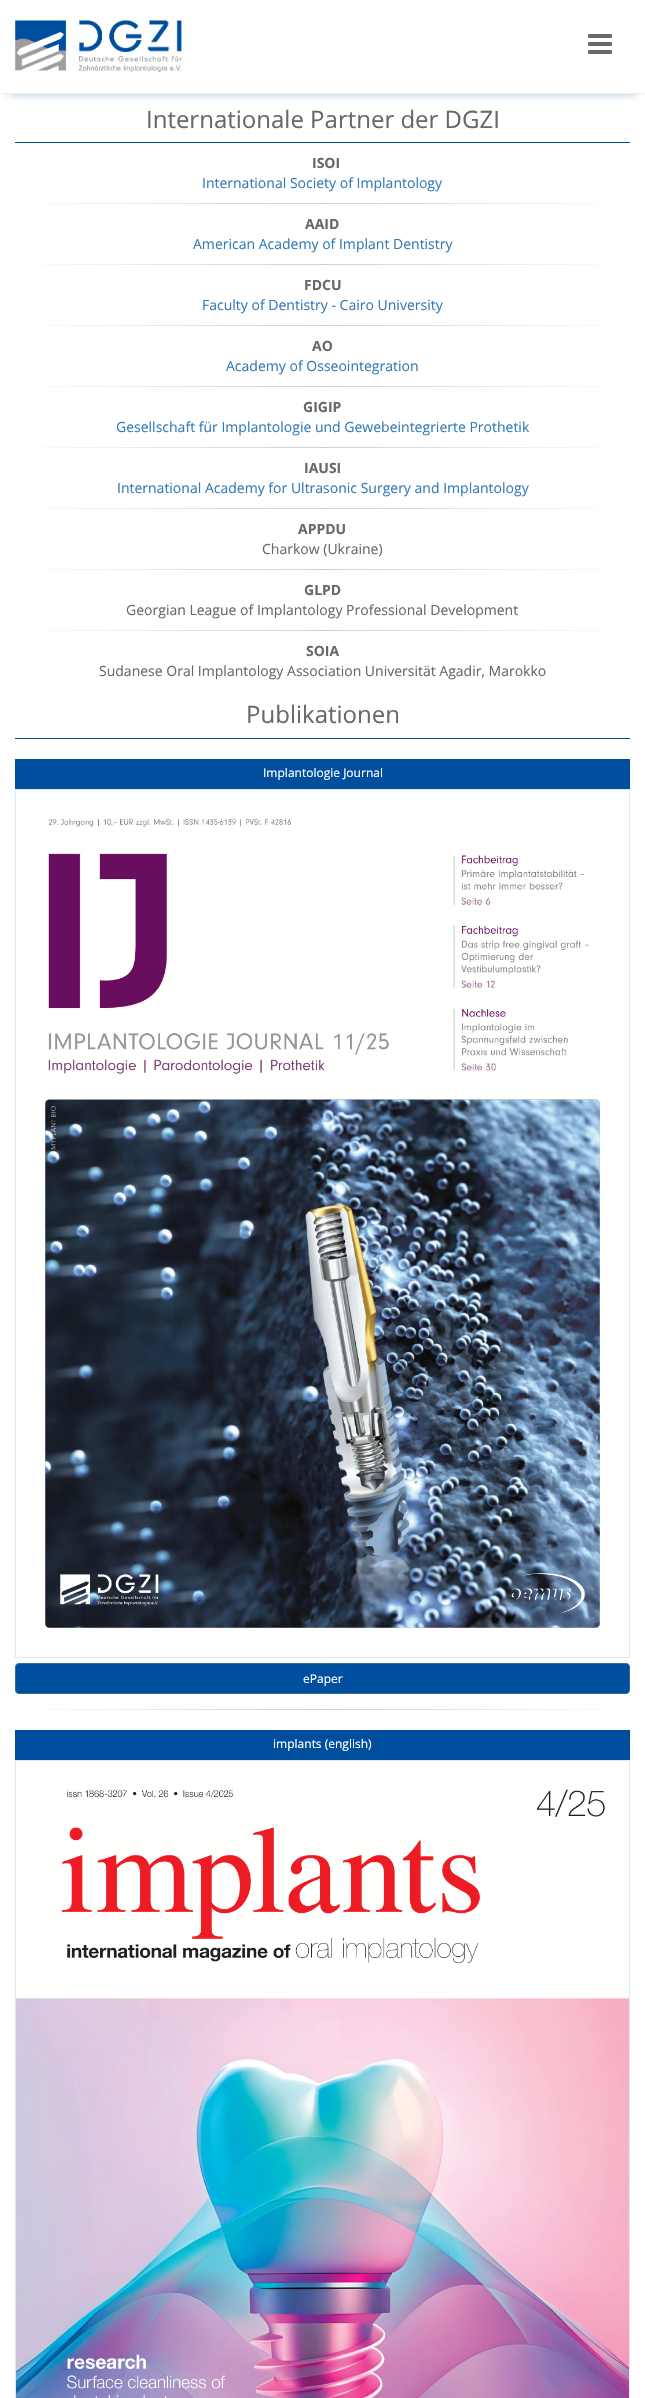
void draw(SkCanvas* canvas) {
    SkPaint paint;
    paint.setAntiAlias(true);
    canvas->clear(0xFFFFFFFF);
    paint.setColor(0x80004F9F);
    paint.setMaskFilter(SkMaskFilter::MakeBlur(kNormal_SkBlurStyle, 5));
    canvas->drawRect(SkRect::MakeXYWH(9, 16, 627, 76), paint);
    paint.setMaskFilter(nullptr);
    paint.setColor(0xFFFFFFFF);
    canvas->drawRect(SkRect::MakeXYWH(0, 6, 645, 87), paint);
    paint.setColor(0xFFEEEEEE);
    canvas->drawRect(SkRect::MakeXYWH(0, 93, 645, 1), paint);
    canvas->drawImageRect(SkImages::DeferredFromEncodedData(SkData::MakeFromFileName("img1.png")), SkRect::MakeXYWH(15, 20, 167, 53), SkSamplingOptions());
    canvas->drawImageRect(SkImages::DeferredFromEncodedData(SkData::MakeFromFileName("img2.png")), SkRect::MakeXYWH(588, 34, 24, 20), SkSamplingOptions());
    paint.setColor(0xFF004F9F);
    canvas->drawRect(SkRect::MakeXYWH(15, 142, 615, 1), paint);
    SkFont font1(fontMgr->matchFamilyStyle("Open Sans", SkFontStyle::Normal()), 24);
    font1.setSubpixel(true);
    paint.setColor(0xFF686868);
    canvas->drawString("Internationale Partner der DGZI", 146, 128, font1, paint);
    SkFont font2(fontMgr->matchFamilyStyle("Open Sans", SkFontStyle::Bold()), 14);
    font2.setSubpixel(true);
    canvas->drawString("ISOI", 312, 168, font2, paint);
    SkFont font3(fontMgr->matchFamilyStyle("Open Sans", SkFontStyle::Normal()), 14);
    font3.setSubpixel(true);
    paint.setColor(0xFF337AB7);
    canvas->drawString("International Society of Implantology", 202, 188, font3, paint);
    {
        const SkColor colors[] = {0xFFFFFFFF, 0xFFCFCFCF, 0xFFFFFFFF};
        const float stops[] = {0, 0.5f, 1};
        const SkPoint ends[] = {{15, 204}, {630, 203}};
        paint.setShader(SkGradientShader::MakeLinear(ends, colors, stops, 3, SkTileMode::kClamp));
        paint.setAlpha(255);
    }
    canvas->drawRect(SkRect::MakeXYWH(31, 203, 583, 1), paint);
    paint.setShader(nullptr);
    paint.setColor(0xFF686868);
    canvas->drawString("AAID", 305, 229, font2, paint);
    paint.setColor(0xFF337AB7);
    canvas->drawString("American Academy of Implant Dentistry", 193, 249, font3, paint);
    {
        const SkColor colors[] = {0xFFFFFFFF, 0xFFCFCFCF, 0xFFFFFFFF};
        const float stops[] = {0, 0.5f, 1};
        const SkPoint ends[] = {{15, 265}, {630, 265}};
        paint.setShader(SkGradientShader::MakeLinear(ends, colors, stops, 3, SkTileMode::kClamp));
        paint.setAlpha(255);
    }
    canvas->drawRect(SkRect::MakeXYWH(31, 264, 583, 1), paint);
    paint.setShader(nullptr);
    paint.setColor(0xFF686868);
    canvas->drawString("FDCU", 304, 290, font2, paint);
    paint.setColor(0xFF337AB7);
    canvas->drawString("Faculty of Dentistry - Cairo University", 202, 310, font3, paint);
    {
        const SkColor colors[] = {0xFFFFFFFF, 0xFFCFCFCF, 0xFFFFFFFF};
        const float stops[] = {0, 0.5f, 1};
        const SkPoint ends[] = {{15, 326}, {630, 326}};
        paint.setShader(SkGradientShader::MakeLinear(ends, colors, stops, 3, SkTileMode::kClamp));
        paint.setAlpha(255);
    }
    canvas->drawRect(SkRect::MakeXYWH(31, 325, 583, 1), paint);
    paint.setShader(nullptr);
    paint.setColor(0xFF686868);
    canvas->drawString("AO", 312, 351, font2, paint);
    paint.setColor(0xFF337AB7);
    canvas->drawString("Academy of Osseointegration", 226, 371, font3, paint);
    {
        const SkColor colors[] = {0xFFFFFFFF, 0xFFCFCFCF, 0xFFFFFFFF};
        const float stops[] = {0, 0.5f, 1};
        const SkPoint ends[] = {{15, 387}, {630, 387}};
        paint.setShader(SkGradientShader::MakeLinear(ends, colors, stops, 3, SkTileMode::kClamp));
        paint.setAlpha(255);
    }
    canvas->drawRect(SkRect::MakeXYWH(31, 386, 583, 1), paint);
    paint.setShader(nullptr);
    paint.setColor(0xFF686868);
    canvas->drawString("GIGIP", 303, 412, font2, paint);
    paint.setColor(0xFF337AB7);
    canvas->drawString("Gesellschaft für Implantologie und Gewebeintegrierte Prothetik", 116, 432, font3, paint);
    {
        const SkColor colors[] = {0xFFFFFFFF, 0xFFCFCFCF, 0xFFFFFFFF};
        const float stops[] = {0, 0.5f, 1};
        const SkPoint ends[] = {{15, 448}, {630, 448}};
        paint.setShader(SkGradientShader::MakeLinear(ends, colors, stops, 3, SkTileMode::kClamp));
        paint.setAlpha(255);
    }
    canvas->drawRect(SkRect::MakeXYWH(31, 447, 583, 1), paint);
    paint.setShader(nullptr);
    paint.setColor(0xFF686868);
    canvas->drawString("IAUSI", 304, 473, font2, paint);
    paint.setColor(0xFF337AB7);
    canvas->drawString("International Academy for Ultrasonic Surgery and Implantology", 117, 493, font3, paint);
    {
        const SkColor colors[] = {0xFFFFFFFF, 0xFFCFCFCF, 0xFFFFFFFF};
        const float stops[] = {0, 0.5f, 1};
        const SkPoint ends[] = {{15, 509}, {630, 509}};
        paint.setShader(SkGradientShader::MakeLinear(ends, colors, stops, 3, SkTileMode::kClamp));
        paint.setAlpha(255);
    }
    canvas->drawRect(SkRect::MakeXYWH(31, 508, 583, 1), paint);
    paint.setShader(nullptr);
    paint.setColor(0xFF686868);
    canvas->drawString("APPDU", 298, 534, font2, paint);
    canvas->drawString("Charkow (Ukraine)", 262, 554, font3, paint);
    {
        const SkColor colors[] = {0xFFFFFFFF, 0xFFCFCFCF, 0xFFFFFFFF};
        const float stops[] = {0, 0.5f, 1};
        const SkPoint ends[] = {{15, 570}, {630, 570}};
        paint.setShader(SkGradientShader::MakeLinear(ends, colors, stops, 3, SkTileMode::kClamp));
        paint.setAlpha(255);
    }
    canvas->drawRect(SkRect::MakeXYWH(31, 569, 583, 1), paint);
    paint.setShader(nullptr);
    paint.setColor(0xFF686868);
    canvas->drawString("GLPD", 304, 595, font2, paint);
    canvas->drawString("Georgian League of Implantology Professional Development", 126, 615, font3, paint);
    {
        const SkColor colors[] = {0xFFFFFFFF, 0xFFCFCFCF, 0xFFFFFFFF};
        const float stops[] = {0, 0.5f, 1};
        const SkPoint ends[] = {{15, 631}, {630, 631}};
        paint.setShader(SkGradientShader::MakeLinear(ends, colors, stops, 3, SkTileMode::kClamp));
        paint.setAlpha(255);
    }
    canvas->drawRect(SkRect::MakeXYWH(31, 630, 583, 1), paint);
    paint.setShader(nullptr);
    paint.setColor(0xFF686868);
    canvas->drawString("SOIA", 306, 656, font2, paint);
    canvas->drawString("Sudanese Oral Implantology Association Universität Agadir, Marokko", 99, 676, font3, paint);
    paint.setColor(0xFF004F9F);
    canvas->drawRect(SkRect::MakeXYWH(15, 738, 615, 1), paint);
    paint.setColor(0xFF686868);
    canvas->drawString("Publikationen", 246, 723, font1, paint);
    paint.setColor(0xFF004F9F);
    canvas->drawRect(SkRect::MakeXYWH(15, 759, 615, 30), paint);
    SkFont font4(fontMgr->matchFamilyStyle("Open Sans", SkFontStyle::Normal()), 12);
    font4.setSubpixel(true);
    paint.setColor(0xFFFFFFFF);
    canvas->drawString("Implantologie Journal", 263, 777, font4, paint);
    paint.setStyle(SkPaint::kStroke_Style);
    paint.setStrokeWidth(1);
    paint.setColor(0xFFE0EAF4);
    canvas->drawRect(SkRect::MakeXYWH(15.5f, 789.5f, 614, 868), paint);
    canvas->drawImageRect(SkImages::DeferredFromEncodedData(SkData::MakeFromFileName("img3.png")), SkRect::MakeXYWH(45, 818, 555, 810), SkSamplingOptions());
    paint.setStyle(SkPaint::kFill_Style);
    paint.setColor(0xFF004F9F);
    canvas->drawRoundRect(SkRect::MakeXYWH(15.5f, 1663.5f, 614, 30), 3.5f, 3.5f, paint);
    paint.setStyle(SkPaint::kStroke_Style);
    paint.setColor(0xFF2E6DA4);
    canvas->drawRoundRect(SkRect::MakeXYWH(15.5f, 1663.5f, 614, 30), 3.5f, 3.5f, paint);
    paint.setStyle(SkPaint::kFill_Style);
    paint.setColor(0xFFFFFFFF);
    canvas->drawString("ePaper", 303, 1683, font4, paint);
    {
        const SkColor colors[] = {0xFFFFFFFF, 0xFFCFCFCF, 0xFFFFFFFF};
        const float stops[] = {0, 0.5f, 1};
        const SkPoint ends[] = {{15, 1710}, {630, 1710}};
        paint.setShader(SkGradientShader::MakeLinear(ends, colors, stops, 3, SkTileMode::kClamp));
        paint.setAlpha(255);
    }
    canvas->drawRect(SkRect::MakeXYWH(31, 1709, 583, 1), paint);
    paint.setShader(nullptr);
    paint.setColor(0xFF004F9F);
    canvas->drawRect(SkRect::MakeXYWH(15, 1730, 615, 30), paint);
    paint.setColor(0xFFFFFFFF);
    canvas->drawString("implants (english)", 273, 1748, font4, paint);
    paint.setStyle(SkPaint::kStroke_Style);
    paint.setColor(0xFFE0EAF4);
    canvas->drawRect(SkRect::MakeXYWH(15.5f, 1760.5f, 614, 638), paint);
    canvas->drawImageRect(SkImages::DeferredFromEncodedData(SkData::MakeFromFileName("img4.png")), SkRect::MakeXYWH(16, 1789, 613, 609), SkSamplingOptions());
}
